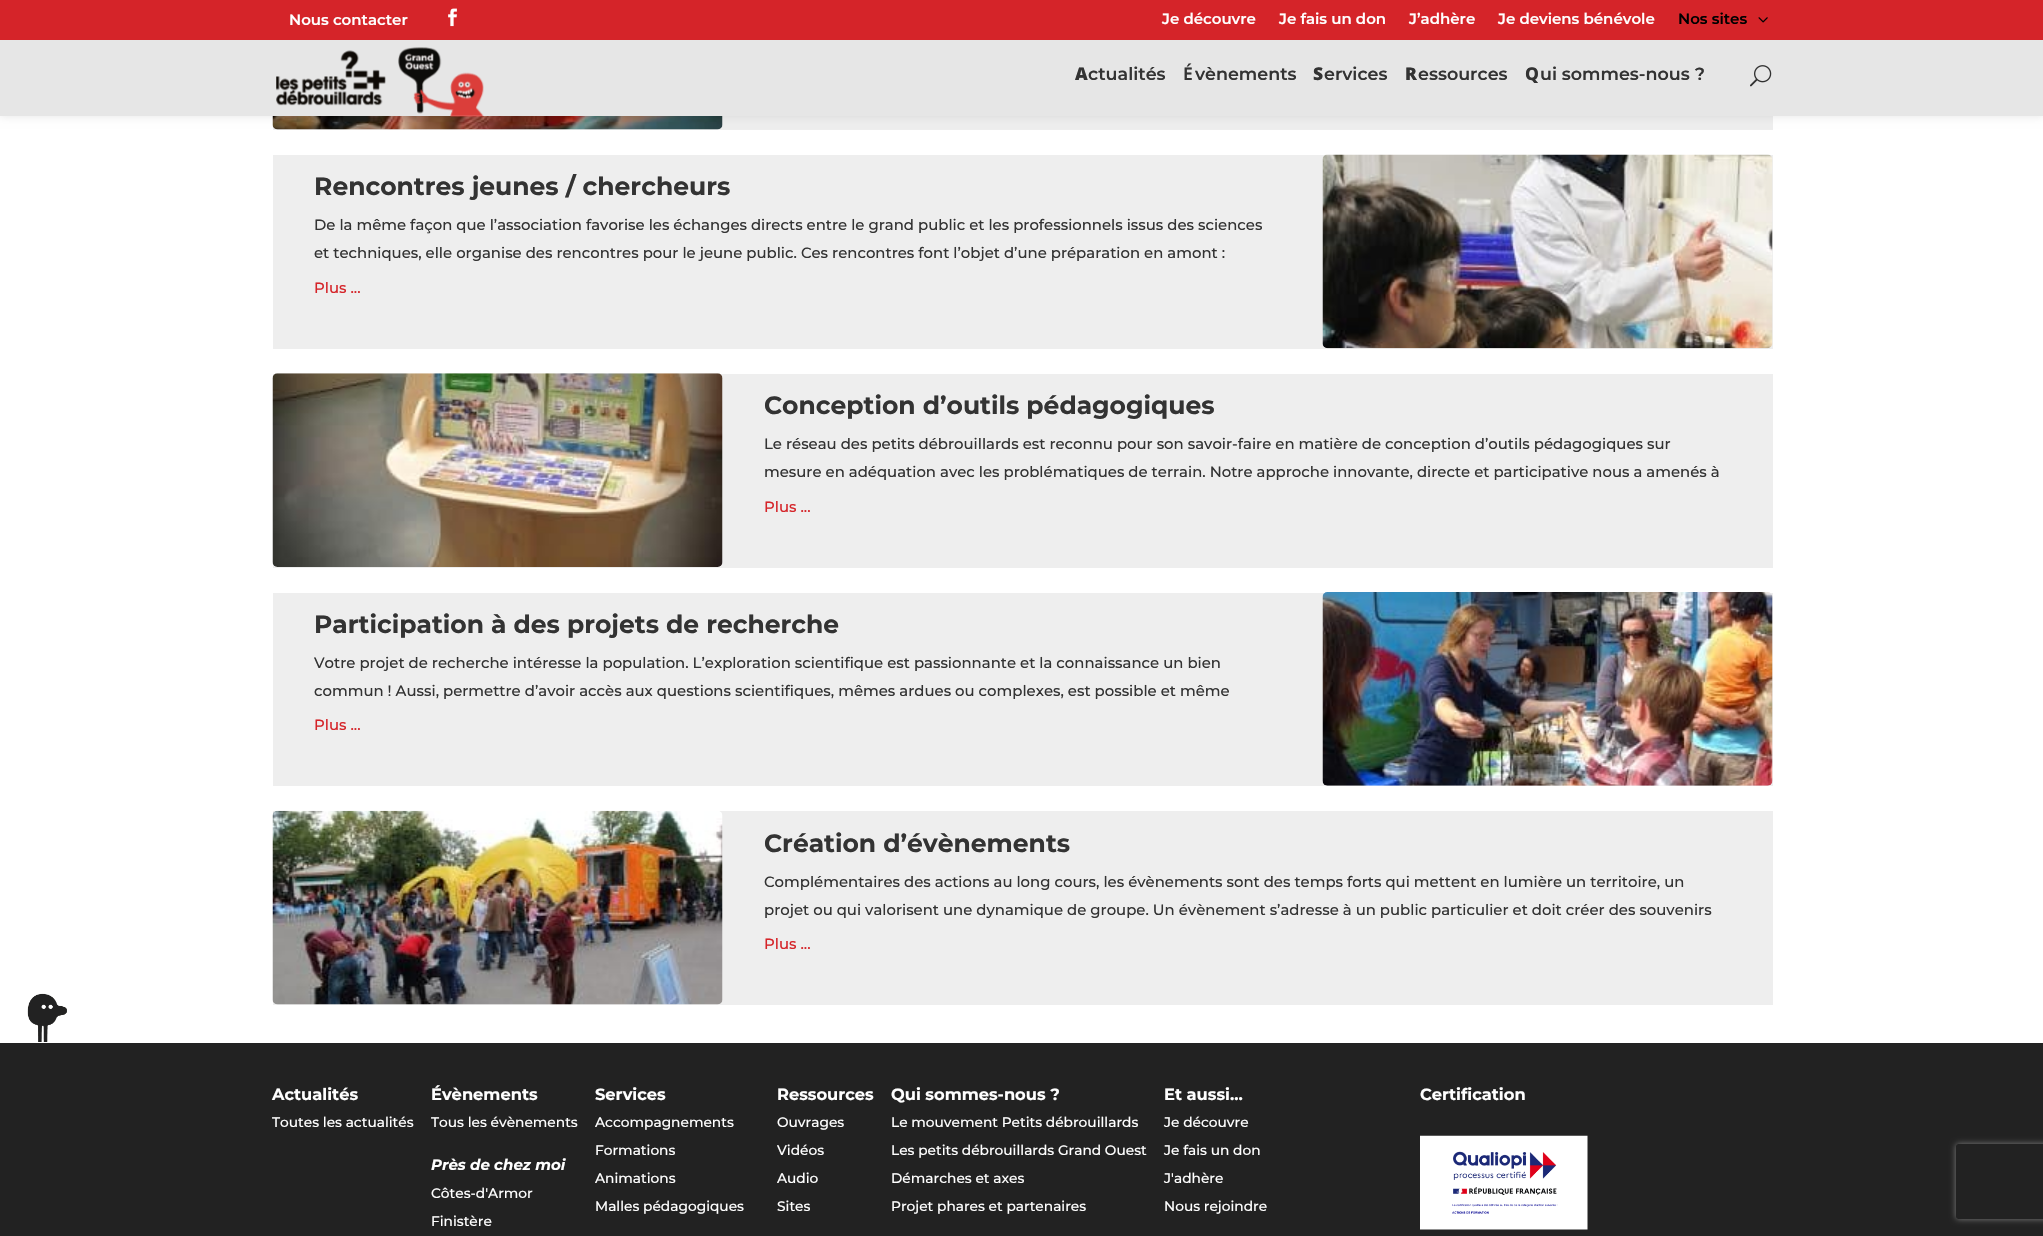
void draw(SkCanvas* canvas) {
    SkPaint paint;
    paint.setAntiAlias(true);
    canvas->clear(0xFFFFFFFF);
    paint.setColor(0xFFEEEEEE);
    canvas->drawRect(SkRect::MakeXYWH(273, 116, 1500, 14), paint);
    canvas->drawImageRect(SkImages::DeferredFromEncodedData(SkData::MakeFromFileName("img5.png")), SkRect::MakeXYWH(272, 116, 451, 14), SkSamplingOptions());
    paint.setColor(0x1A000000);
    paint.setMaskFilter(SkMaskFilter::MakeBlur(kNormal_SkBlurStyle, 4.5f));
    canvas->drawRect(SkRect::MakeXYWH(0, 40, 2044, 76), paint);
    paint.setMaskFilter(nullptr);
    paint.setColor(0xFFD52429);
    canvas->drawRect(SkRect::MakeXYWH(0, 0, 2043, 40), paint);
    SkFont font1(fontMgr->matchFamilyStyle("Montserrat", SkFontStyle(600, SkFontStyle::kNormal_Width, SkFontStyle::kUpright_Slant)), 15);
    font1.setSubpixel(true);
    paint.setColor(0xFFFFFFFF);
    canvas->drawString("Nous contacter", 289, 25, font1, paint);
    canvas->drawImageRect(SkImages::DeferredFromEncodedData(SkData::MakeFromFileName("img1.png")), SkRect::MakeXYWH(448, 8, 9, 19), SkSamplingOptions());
    canvas->drawString("Je découvre", 1162, 24, font1, paint);
    canvas->drawString("Je fais un don", 1279, 24, font1, paint);
    canvas->drawString("J’adhère", 1409, 24, font1, paint);
    canvas->drawString("Je deviens bénévole", 1498, 24, font1, paint);
    paint.setColor(0xFF000000);
    canvas->drawString("Nos sites", 1678, 24, font1, paint);
    canvas->drawImageRect(SkImages::DeferredFromEncodedData(SkData::MakeFromFileName("img2.png")), SkRect::MakeXYWH(1758, 17, 10, 6), SkSamplingOptions());
    paint.setColor(0xFFE6E6E6);
    canvas->drawRect(SkRect::MakeXYWH(0, 40, 2043, 76), paint);
    canvas->drawImageRect(SkImages::DeferredFromEncodedData(SkData::MakeFromFileName("img3.png")), SkRect::MakeXYWH(276, 47, 208, 70), SkSamplingOptions());
    SkFont font2(fontMgr->matchFamilyStyle("Noto Sans", SkFontStyle(900, SkFontStyle::kNormal_Width, SkFontStyle::kUpright_Slant)), 17.5f);
    font2.setSubpixel(true);
    paint.setColor(0xFF333333);
    canvas->drawString("A", 1075, 80, font2, paint);
    SkFont font3(fontMgr->matchFamilyStyle("Montserrat", SkFontStyle(600, SkFontStyle::kNormal_Width, SkFontStyle::kUpright_Slant)), 17.5f);
    font3.setSubpixel(true);
    canvas->drawString("ctualités", 1088, 80, font3, paint);
    SkFont font4(fontMgr->matchFamilyStyle("Noto Sans", SkFontStyle(600, SkFontStyle::kNormal_Width, SkFontStyle::kUpright_Slant)), 17.5f);
    font4.setSubpixel(true);
    canvas->drawString("É", 1183, 80, font4, paint);
    canvas->drawString("vènements", 1195, 80, font3, paint);
    canvas->drawString("S", 1313, 80, font2, paint);
    canvas->drawString("ervices", 1324, 80, font3, paint);
    canvas->drawString("R", 1405, 80, font2, paint);
    canvas->drawString("essources", 1418, 80, font3, paint);
    SkFont font5(fontMgr->matchFamilyStyle("Noto Sans", SkFontStyle(800, SkFontStyle::kNormal_Width, SkFontStyle::kUpright_Slant)), 17.5f);
    font5.setSubpixel(true);
    canvas->drawString("Q", 1525, 80, font5, paint);
    canvas->drawString("ui sommes-nous ?", 1540, 80, font3, paint);
    canvas->drawImageRect(SkImages::DeferredFromEncodedData(SkData::MakeFromFileName("img4.png")), SkRect::MakeXYWH(1750, 65, 22, 22), SkSamplingOptions());
    paint.setColor(0xFFEEEEEE);
    canvas->drawRect(SkRect::MakeXYWH(273, 155, 1500, 194), paint);
    SkFont font6(fontMgr->matchFamilyStyle("Montserrat", SkFontStyle::Bold()), 25);
    font6.setSubpixel(true);
    paint.setColor(0xFF333333);
    canvas->drawString("Rencontres jeunes / chercheurs", 314, 195, font6, paint);
    canvas->drawImageRect(SkImages::DeferredFromEncodedData(SkData::MakeFromFileName("img6.png")), SkRect::MakeXYWH(1322, 154, 451, 195), SkSamplingOptions());
    SkFont font7(fontMgr->matchFamilyStyle("Montserrat", SkFontStyle(500, SkFontStyle::kNormal_Width, SkFontStyle::kUpright_Slant)), 14.88f);
    font7.setSubpixel(true);
    canvas->drawString("De la même façon que l’association favorise les échanges directs entre le grand public et les professionnels issus des sciences", 314, 230, font7, paint);
    canvas->drawString("et techniques, elle organise des rencontres pour le jeune public. Ces rencontres font l’objet d’une préparation en amont :", 314, 258, font7, paint);
    paint.setColor(0xFFD52429);
    canvas->drawString("Plus ...", 314, 293, font7, paint);
    paint.setColor(0xFFEEEEEE);
    canvas->drawRect(SkRect::MakeXYWH(273, 374, 1500, 194), paint);
    canvas->drawImageRect(SkImages::DeferredFromEncodedData(SkData::MakeFromFileName("img7.png")), SkRect::MakeXYWH(272, 373, 451, 194), SkSamplingOptions());
    paint.setColor(0xFF333333);
    canvas->drawString("Conception d’outils pédagogiques", 764, 414, font6, paint);
    canvas->drawString("Le réseau des petits débrouillards est reconnu pour son savoir-faire en matière de conception d’outils pédagogiques sur", 764, 449, font7, paint);
    canvas->drawString("mesure en adéquation avec les problématiques de terrain. Notre approche innovante, directe et participative nous a amenés à", 764, 477, font7, paint);
    paint.setColor(0xFFD52429);
    canvas->drawString("Plus ...", 764, 512, font7, paint);
    paint.setColor(0xFFEEEEEE);
    canvas->drawRect(SkRect::MakeXYWH(273, 593, 1500, 193), paint);
    paint.setColor(0xFF333333);
    canvas->drawString("Participation à des projets de recherche", 314, 633, font6, paint);
    canvas->drawImageRect(SkImages::DeferredFromEncodedData(SkData::MakeFromFileName("img8.png")), SkRect::MakeXYWH(1322, 592, 451, 194), SkSamplingOptions());
    canvas->drawString("Votre projet de recherche intéresse la population. L’exploration scientifique est passionnante et la connaissance un bien", 314, 668, font7, paint);
    canvas->drawString("commun ! Aussi, permettre d’avoir accès aux questions scientifiques, mêmes ardues ou complexes, est possible et même", 314, 696, font7, paint);
    paint.setColor(0xFFD52429);
    canvas->drawString("Plus ...", 314, 730, font7, paint);
    paint.setColor(0xFFEEEEEE);
    canvas->drawRect(SkRect::MakeXYWH(273, 811, 1500, 194), paint);
    canvas->drawImageRect(SkImages::DeferredFromEncodedData(SkData::MakeFromFileName("img9.png")), SkRect::MakeXYWH(272, 810, 451, 195), SkSamplingOptions());
    paint.setColor(0xFF333333);
    canvas->drawString("Création d’évènements", 764, 852, font6, paint);
    canvas->drawString("Complémentaires des actions au long cours, les évènements sont des temps forts qui mettent en lumière un territoire, un", 764, 887, font7, paint);
    canvas->drawString("projet ou qui valorisent une dynamique de groupe. Un évènement s’adresse à un public particulier et doit créer des souvenirs", 764, 915, font7, paint);
    paint.setColor(0xFFD52429);
    canvas->drawString("Plus ...", 764, 949, font7, paint);
    paint.setColor(0xFF222222);
    canvas->drawRect(SkRect::MakeXYWH(0, 1043, 2043, 193), paint);
    canvas->drawImageRect(SkImages::DeferredFromEncodedData(SkData::MakeFromFileName("img10.png")), SkRect::MakeXYWH(27, 993, 40, 49), SkSamplingOptions());
    SkFont font8(fontMgr->matchFamilyStyle("Montserrat", SkFontStyle::Bold()), 16.25f);
    font8.setSubpixel(true);
    paint.setColor(0xFFFFFFFF);
    canvas->drawString("Actualités", 272, 1100, font8, paint);
    SkFont font9(fontMgr->matchFamilyStyle("Montserrat", SkFontStyle(500, SkFontStyle::kNormal_Width, SkFontStyle::kUpright_Slant)), 13.75f);
    font9.setSubpixel(true);
    canvas->drawString("Toutes les actualités", 272, 1127, font9, paint);
    canvas->drawString("Évènements", 431, 1100, font8, paint);
    canvas->drawString("Tous les évènements", 431, 1127, font9, paint);
    SkFont font10(fontMgr->matchFamilyStyle("Montserrat", SkFontStyle::BoldItalic()), 15);
    font10.setSubpixel(true);
    canvas->drawString("Près de chez moi", 431, 1170, font10, paint);
    canvas->drawString("Côtes-d'Armor", 431, 1198, font9, paint);
    canvas->drawString("Finistère", 431, 1226, font9, paint);
    canvas->drawString("Services", 595, 1100, font8, paint);
    canvas->drawString("Accompagnements", 595, 1127, font9, paint);
    canvas->drawString("Formations", 595, 1155, font9, paint);
    canvas->drawString("Animations", 595, 1183, font9, paint);
    canvas->drawString("Malles pédagogiques", 595, 1211, font9, paint);
    canvas->drawString("Ressources", 777, 1100, font8, paint);
    canvas->drawString("Ouvrages", 777, 1127, font9, paint);
    canvas->drawString("Vidéos", 777, 1155, font9, paint);
    canvas->drawString("Audio", 777, 1183, font9, paint);
    canvas->drawString("Sites", 777, 1211, font9, paint);
    canvas->drawString("Qui sommes-nous ?", 891, 1100, font8, paint);
    canvas->drawString("Le mouvement Petits débrouillards", 891, 1127, font9, paint);
    canvas->drawString("Les petits débrouillards Grand Ouest", 891, 1155, font9, paint);
    canvas->drawString("Démarches et axes", 891, 1183, font9, paint);
    canvas->drawString("Projet phares et partenaires", 891, 1211, font9, paint);
    canvas->drawString("Et aussi...", 1164, 1100, font8, paint);
    canvas->drawString("Je découvre", 1164, 1127, font9, paint);
    canvas->drawString("Je fais un don", 1164, 1155, font9, paint);
    canvas->drawString("J'adhère", 1164, 1183, font9, paint);
    canvas->drawString("Nous rejoindre", 1164, 1211, font9, paint);
    canvas->drawString("Certification", 1420, 1100, font8, paint);
    canvas->drawImageRect(SkImages::DeferredFromEncodedData(SkData::MakeFromFileName("img11.png")), SkRect::MakeXYWH(1420, 1135, 168, 95), SkSamplingOptions());
    canvas->save();
    canvas->clipPath(SkPathBuilder(SkPathFillType::kEvenOdd).moveTo(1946, 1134).lineTo(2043, 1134).lineTo(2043, 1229).lineTo(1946, 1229).close().moveTo(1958.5f, 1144).lineTo(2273.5f, 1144).cubicTo(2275, 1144, 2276, 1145, 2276, 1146.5f).lineTo(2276, 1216.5f).cubicTo(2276, 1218, 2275, 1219, 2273.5f, 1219).lineTo(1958.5f, 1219).cubicTo(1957, 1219, 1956, 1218, 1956, 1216.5f).lineTo(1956, 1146.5f).cubicTo(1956, 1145, 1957, 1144, 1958.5f, 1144).close().detach(), true);
    paint.setColor(0xFF808080);
    paint.setMaskFilter(SkMaskFilter::MakeBlur(kNormal_SkBlurStyle, 3));
    canvas->drawRoundRect(SkRect::MakeXYWH(1956, 1144, 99, 75), 2.5f, 2.5f, paint);
    paint.setMaskFilter(nullptr);
    canvas->restore();
}
